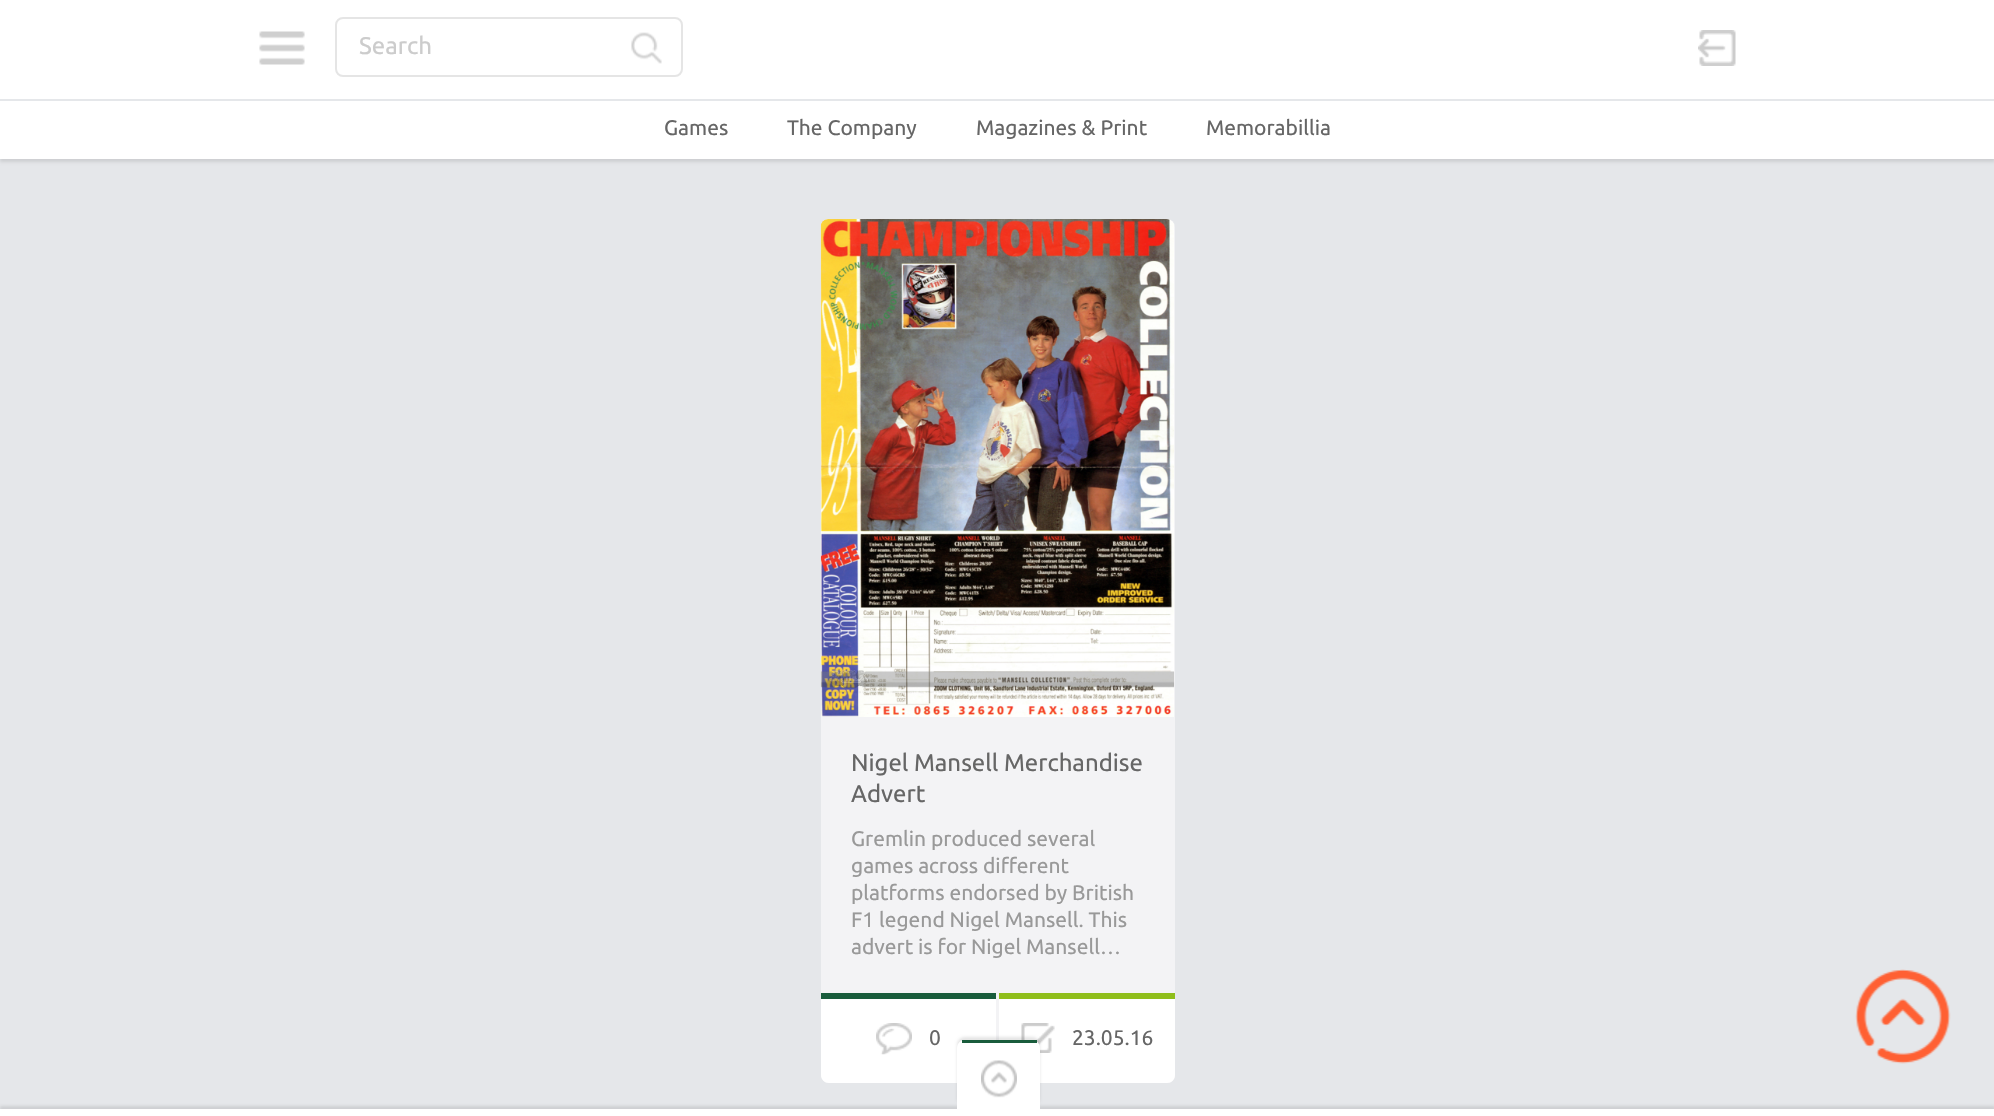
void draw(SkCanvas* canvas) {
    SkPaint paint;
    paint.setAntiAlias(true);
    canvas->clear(0xFFE5E7EA);
    paint.setColor(0x1A000000);
    paint.setMaskFilter(SkMaskFilter::MakeBlur(kNormal_SkBlurStyle, 1.5f));
    canvas->drawRect(SkRect::MakeXYWH(0, 3, 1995, 159), paint);
    paint.setMaskFilter(nullptr);
    paint.setColor(0xFFFFFFFF);
    canvas->drawRect(SkRect::MakeXYWH(0, 0, 1994, 159), paint);
    canvas->drawImageRect(SkImages::DeferredFromEncodedData(SkData::MakeFromFileName("img1.png")), SkRect::MakeXYWH(259, 31, 46, 34), SkSamplingOptions());
    paint.setStyle(SkPaint::kStroke_Style);
    paint.setStrokeWidth(2);
    paint.setColor(0xFFE5E5E5);
    canvas->drawRoundRect(SkRect::MakeXYWH(336, 18, 346, 58), 7, 7, paint);
    SkFont font1(fontMgr->matchFamilyStyle("Ubuntu", SkFontStyle::Normal()), 24);
    font1.setSubpixel(true);
    paint.setStyle(SkPaint::kFill_Style);
    paint.setColor(0xFFCCCCCC);
    canvas->drawString("Search", 359, 54, font1, paint);
    canvas->drawImageRect(SkImages::DeferredFromEncodedData(SkData::MakeFromFileName("img2.png")), SkRect::MakeXYWH(631, 32, 31, 32), SkSamplingOptions());
    canvas->drawImageRect(SkImages::DeferredFromEncodedData(SkData::MakeFromFileName("img3.png")), SkRect::MakeXYWH(1698, 30, 38, 36), SkSamplingOptions());
    paint.setColor(0xFFE5E7EA);
    canvas->drawRect(SkRect::MakeXYWH(0, 99, 1994, 2), paint);
    SkFont font2(fontMgr->matchFamilyStyle("Ubuntu", SkFontStyle::Normal()), 21);
    font2.setSubpixel(true);
    paint.setColor(0xFF666666);
    canvas->drawString("Games", 664, 135, font2, paint);
    canvas->drawString("The Company", 787, 135, font2, paint);
    canvas->drawString("Magazines & Print", 976, 135, font2, paint);
    canvas->drawString("Memorabillia", 1206, 135, font2, paint);
    paint.setColor(0xFFF3F3F5);
    canvas->drawRoundRect(SkRect::MakeXYWH(821, 219, 354, 864), 8, 8, paint);
    canvas->drawImageRect(SkImages::DeferredFromEncodedData(SkData::MakeFromFileName("img4.png")), SkRect::MakeXYWH(820, 219, 355, 498), SkSamplingOptions());
    paint.setColor(0xFF666666);
    canvas->drawString("Nigel Mansell Merchandise", 851, 771, font1, paint);
    canvas->drawString("Advert", 851, 802, font1, paint);
    paint.setColor(0xFF999999);
    canvas->drawString("Gremlin produced several", 851, 846, font2, paint);
    canvas->drawString("games across different", 851, 873, font2, paint);
    canvas->drawString("platforms endorsed by British", 851, 900, font2, paint);
    canvas->drawString("F1 legend Nigel Mansell. This", 851, 927, font2, paint);
    canvas->drawString("advert is for Nigel Mansell…", 851, 954, font2, paint);
    paint.setColor(0xFFFFFFFF);
    canvas->drawPath(SkPathBuilder().moveTo(821, 993).lineTo(996, 993).lineTo(996, 1083).lineTo(829, 1083).cubicTo(824.5f, 1083, 821, 1079.5f, 821, 1075).close().detach(), paint);
    paint.setColor(0xFF195C3C);
    canvas->drawRect(SkRect::MakeXYWH(821, 993, 175, 6), paint);
    canvas->drawImageRect(SkImages::DeferredFromEncodedData(SkData::MakeFromFileName("img5.png")), SkRect::MakeXYWH(876, 1023, 36, 32), SkSamplingOptions());
    paint.setColor(0xFF666666);
    canvas->drawString("0", 929, 1045, font2, paint);
    paint.setColor(0xFFFFFFFF);
    canvas->drawPath(SkPathBuilder().moveTo(999, 993).lineTo(1175, 993).lineTo(1175, 1075).cubicTo(1175, 1079.5f, 1171.5f, 1083, 1167, 1083).lineTo(999, 1083).close().detach(), paint);
    paint.setColor(0xFF8FBE1B);
    canvas->drawRect(SkRect::MakeXYWH(999, 993, 176, 6), paint);
    canvas->drawImageRect(SkImages::DeferredFromEncodedData(SkData::MakeFromFileName("img6.png")), SkRect::MakeXYWH(1021, 1023, 34, 30), SkSamplingOptions());
    paint.setColor(0xFF666666);
    canvas->drawString("23.05.16", 1072, 1045, font2, paint);
    paint.setColor(0x1A000000);
    paint.setMaskFilter(SkMaskFilter::MakeBlur(kNormal_SkBlurStyle, 1.5f));
    canvas->drawRect(SkRect::MakeXYWH(0, 1106, 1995, 7), paint);
    paint.setMaskFilter(nullptr);
    canvas->drawImageRect(SkImages::DeferredFromEncodedData(SkData::MakeFromFileName("img7.png")), SkRect::MakeXYWH(1855, 969, 96, 95), SkSamplingOptions());
    paint.setColor(0xFFFFFFFF);
    canvas->drawRect(SkRect::MakeXYWH(0, 1109, 1994, 7), paint);
    paint.setColor(0x1A000000);
    paint.setMaskFilter(SkMaskFilter::MakeBlur(kNormal_SkBlurStyle, 1.5f));
    canvas->drawRoundRect(SkRect::MakeXYWH(957, 1037, 83, 69), 8, 8, paint);
    paint.setMaskFilter(nullptr);
    paint.setColor(0xFFFFFFFF);
    canvas->drawPath(SkPathBuilder().moveTo(965, 1040).lineTo(1032, 1040).cubicTo(1036.5f, 1040, 1040, 1043.5f, 1040, 1048).lineTo(1040, 1109).lineTo(957, 1109).lineTo(957, 1048).cubicTo(957, 1043.5f, 960.5f, 1040, 965, 1040).close().detach(), paint);
    canvas->drawImageRect(SkImages::DeferredFromEncodedData(SkData::MakeFromFileName("img8.png")), SkRect::MakeXYWH(981, 1060, 36, 38), SkSamplingOptions());
    paint.setColor(0xFF195C3C);
    canvas->drawRect(SkRect::MakeXYWH(962, 1040, 75, 3), paint);
}
